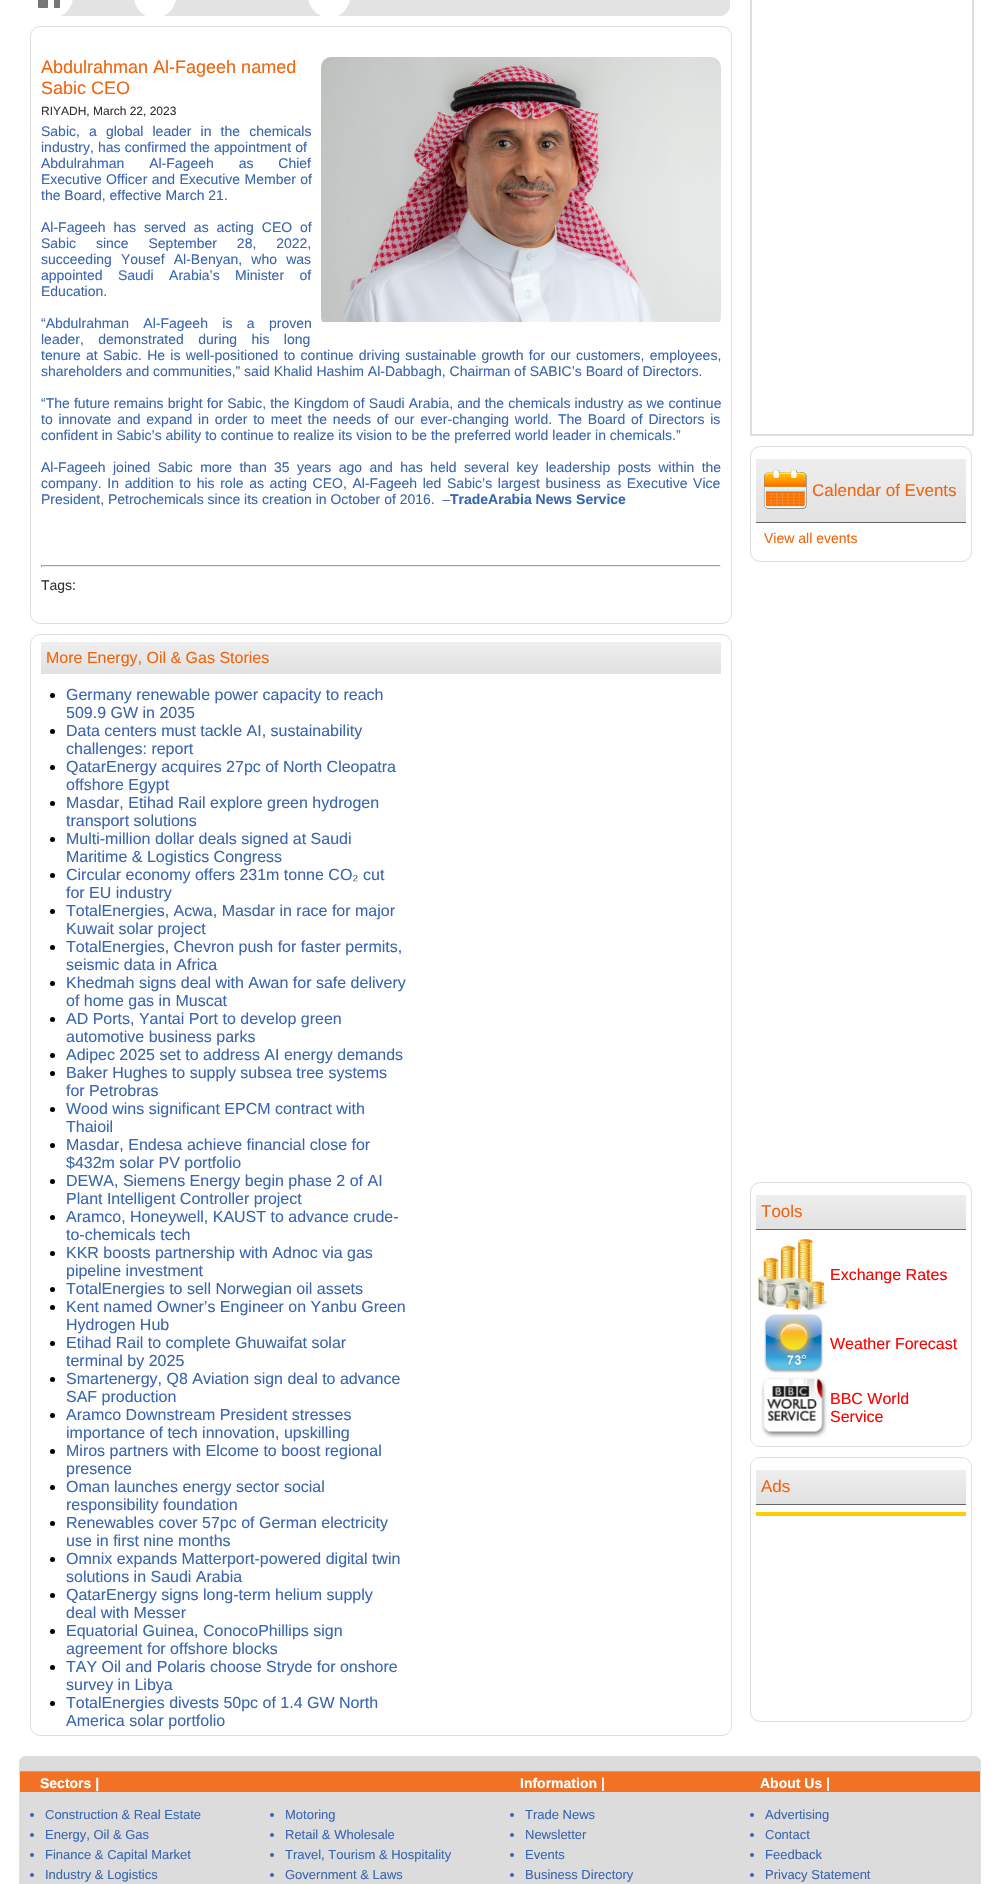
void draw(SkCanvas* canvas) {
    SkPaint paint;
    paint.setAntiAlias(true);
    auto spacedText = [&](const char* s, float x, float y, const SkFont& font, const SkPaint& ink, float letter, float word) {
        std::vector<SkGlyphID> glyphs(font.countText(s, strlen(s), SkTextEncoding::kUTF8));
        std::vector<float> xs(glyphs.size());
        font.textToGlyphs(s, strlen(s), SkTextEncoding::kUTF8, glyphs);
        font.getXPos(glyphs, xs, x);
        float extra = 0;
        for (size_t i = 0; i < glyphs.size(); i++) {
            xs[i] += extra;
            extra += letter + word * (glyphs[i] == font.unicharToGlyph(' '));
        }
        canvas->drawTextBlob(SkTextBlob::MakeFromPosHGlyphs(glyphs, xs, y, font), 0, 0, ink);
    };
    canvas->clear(0xFFFFFFFF);
    paint.setColor(0xFFE3E3E3);
    canvas->drawPath(SkPathBuilder().moveTo(30, -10).lineTo(720, -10).cubicTo(725.5f, -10, 730, -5.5f, 730, 0).lineTo(730, 6).cubicTo(730, 11.5f, 725.5f, 16, 720, 16).lineTo(30, 16).close().detach(), paint);
    paint.setColor(0xFFFFFFFF);
    canvas->drawRect(SkRect::MakeXYWH(30, 0, 31, 16), paint);
    canvas->drawImageRect(SkImages::DeferredFromEncodedData(SkData::MakeFromFileName("img1.png")), SkRect::MakeXYWH(38, 0, 23, 8), SkSamplingOptions());
    canvas->drawImageRect(SkImages::DeferredFromEncodedData(SkData::MakeFromFileName("img2.png")), SkRect::MakeXYWH(61, 0, 12, 16), SkSamplingOptions());
    canvas->drawRect(SkRect::MakeXYWH(145, 0, 19, 16), paint);
    canvas->drawImageRect(SkImages::DeferredFromEncodedData(SkData::MakeFromFileName("img3.png")), SkRect::MakeXYWH(134, 0, 11, 16), SkSamplingOptions());
    canvas->drawImageRect(SkImages::DeferredFromEncodedData(SkData::MakeFromFileName("img4.png")), SkRect::MakeXYWH(164, 0, 12, 16), SkSamplingOptions());
    canvas->drawImageRect(SkImages::DeferredFromEncodedData(SkData::MakeFromFileName("img5.png")), SkRect::MakeXYWH(308, 0, 12, 16), SkSamplingOptions());
    canvas->drawRect(SkRect::MakeXYWH(320, 0, 18, 16), paint);
    canvas->drawImageRect(SkImages::DeferredFromEncodedData(SkData::MakeFromFileName("img2.png")), SkRect::MakeXYWH(338, 0, 12, 16), SkSamplingOptions());
    paint.setStyle(SkPaint::kStroke_Style);
    paint.setStrokeWidth(1);
    paint.setColor(0xFFDDDEDF);
    canvas->drawRoundRect(SkRect::MakeXYWH(30.5f, 26.5f, 701, 597), 9.5f, 9.5f, paint);
    SkFont font1(fontMgr->matchFamilyStyle("Liberation Sans", SkFontStyle::Normal()), 18);
    font1.setSubpixel(true);
    paint.setStyle(SkPaint::kFill_Style);
    paint.setColor(0xFFF2640C);
    canvas->drawString("Abdulrahman Al-Fageeh named", 41, 73, font1, paint);
    canvas->drawString("Sabic CEO", 41, 94, font1, paint);
    canvas->drawImageRect(SkImages::DeferredFromEncodedData(SkData::MakeFromFileName("img6.png")), SkRect::MakeXYWH(321, 57, 400, 265), SkSamplingOptions());
    SkFont font2(fontMgr->matchFamilyStyle("Liberation Sans", SkFontStyle::Normal()), 12);
    font2.setSubpixel(true);
    paint.setColor(0xFF333333);
    canvas->drawString("RIYADH, March 22, 2023", 41, 115, font2, paint);
    SkFont font3(fontMgr->matchFamilyStyle("Liberation Sans", SkFontStyle::Normal()), 14);
    font3.setSubpixel(true);
    paint.setColor(0xFF3966AF);
    spacedText("Sabic, a global leader in the chemicals", 41, 136, font3, paint, 0, 5.25f);
    spacedText("industry, has confirmed the appointment of", 41, 152, font3, paint, 0, 0.25f);
    spacedText("Abdulrahman Al-Fageeh as Chief", 41, 168, font3, paint, 0, 21);
    spacedText("Executive Officer and Executive Member of", 41, 184, font3, paint, 0, 0.5f);
    canvas->drawString("the Board, effective March 21.", 41, 200, font3, paint);
    spacedText("Al-Fageeh has served as acting CEO of", 41, 232, font3, paint, 0, 4);
    spacedText("Sabic since September 28, 2022,", 41, 248, font3, paint, 0, 16);
    spacedText("succeeding Yousef Al-Benyan, who was", 41, 264, font3, paint, 0, 5.25f);
    spacedText("appointed Saudi Arabia’s Minister of", 41, 280, font3, paint, 0, 11.5f);
    canvas->drawString("Education.", 41, 296, font3, paint);
    spacedText("“Abdulrahman Al-Fageeh is a proven", 41, 328, font3, paint, 0, 10.5f);
    spacedText("leader, demonstrated during his long", 41, 344, font3, paint, 0, 10.5f);
    spacedText("tenure at Sabic. He is well-positioned to continue driving sustainable growth for our customers, employees,", 41, 360, font3, paint, 0, 1.4f);
    canvas->drawString("shareholders and communities,” said Khalid Hashim Al-Dabbagh, Chairman of SABIC’s Board of Directors.", 41, 376, font3, paint);
    spacedText("“The future remains bright for Sabic, the Kingdom of Saudi Arabia, and the chemicals industry as we continue", 41, 408, font3, paint, 0, 0.2f);
    spacedText("to innovate and expand in order to meet the needs of our ever-changing world. The Board of Directors is", 41, 424, font3, paint, 0, 1.9f);
    canvas->drawString("confident in Sabic’s ability to continue to realize its vision to be the preferred world leader in chemicals.”", 41, 440, font3, paint);
    spacedText("Al-Fageeh joined Sabic more than 35 years ago and has held several key leadership posts within the", 41, 472, font3, paint, 0, 3.5f);
    spacedText("company. In addition to his role as acting CEO, Al-Fageeh led Sabic’s largest business as Executive Vice", 41, 488, font3, paint, 0, 1.75f);
    canvas->drawString("President, Petrochemicals since its creation in October of 2016.  –", 41, 504, font3, paint);
    SkFont font4(fontMgr->matchFamilyStyle("Liberation Sans", SkFontStyle::Bold()), 14);
    font4.setSubpixel(true);
    canvas->drawString("TradeArabia News Service", 450, 504, font4, paint);
    paint.setColor(0xFF9F9F9F);
    canvas->drawRect(SkRect::MakeXYWH(41, 565, 680, 1), paint);
    paint.setColor(0xFFEEEEEE);
    canvas->drawRect(SkRect::MakeXYWH(720, 565, 1, 2), paint);
    canvas->drawRect(SkRect::MakeXYWH(41, 566, 680, 1), paint);
    paint.setColor(0xFF9F9F9F);
    canvas->drawRect(SkRect::MakeXYWH(41, 565, 1, 2), paint);
    paint.setColor(0xFF333333);
    canvas->drawString("Tags:", 41, 590, font3, paint);
    paint.setStyle(SkPaint::kStroke_Style);
    paint.setColor(0xFFDDDEDF);
    canvas->drawRoundRect(SkRect::MakeXYWH(30.5f, 634.5f, 701, 1101), 9.5f, 9.5f, paint);
    paint.setStyle(SkPaint::kFill_Style);
    {
        const SkColor colors[] = {0xFFEEEEEE, 0xFFE1E1E1};
        const float stops[] = {0, 1};
        const SkPoint ends[] = {{41, 642}, {41, 674}};
        paint.setShader(SkGradientShader::MakeLinear(ends, colors, stops, 2, SkTileMode::kClamp));
        paint.setAlpha(255);
    }
    canvas->drawRect(SkRect::MakeXYWH(41, 642, 680, 32), paint);
    SkFont font5(fontMgr->matchFamilyStyle("Liberation Sans", SkFontStyle::Normal()), 16);
    font5.setSubpixel(true);
    paint.setShader(nullptr);
    paint.setColor(0xFFF2640C);
    canvas->drawString("More Energy, Oil & Gas Stories", 46, 663, font5, paint);
    paint.setColor(0xFF000000);
    canvas->drawCircle(52.5f, 695.5f, 2.5f, paint);
    paint.setColor(0xFF3966AF);
    canvas->drawString("Germany renewable power capacity to reach", 66, 700, font5, paint);
    canvas->drawString("509.9 GW in 2035", 66, 718, font5, paint);
    paint.setColor(0xFF000000);
    canvas->drawCircle(52.5f, 731.5f, 2.5f, paint);
    paint.setColor(0xFF3966AF);
    canvas->drawString("Data centers must tackle AI, sustainability", 66, 736, font5, paint);
    canvas->drawString("challenges: report", 66, 754, font5, paint);
    paint.setColor(0xFF000000);
    canvas->drawCircle(52.5f, 767.5f, 2.5f, paint);
    paint.setColor(0xFF3966AF);
    canvas->drawString("QatarEnergy acquires 27pc of North Cleopatra", 66, 772, font5, paint);
    canvas->drawString("offshore Egypt", 66, 790, font5, paint);
    paint.setColor(0xFF000000);
    canvas->drawCircle(52.5f, 803.5f, 2.5f, paint);
    paint.setColor(0xFF3966AF);
    canvas->drawString("Masdar, Etihad Rail explore green hydrogen", 66, 808, font5, paint);
    canvas->drawString("transport solutions", 66, 826, font5, paint);
    paint.setColor(0xFF000000);
    canvas->drawCircle(52.5f, 839.5f, 2.5f, paint);
    paint.setColor(0xFF3966AF);
    canvas->drawString("Multi-million dollar deals signed at Saudi", 66, 844, font5, paint);
    canvas->drawString("Maritime & Logistics Congress", 66, 862, font5, paint);
    paint.setColor(0xFF000000);
    canvas->drawCircle(52.5f, 875.5f, 2.5f, paint);
    paint.setColor(0xFF3966AF);
    canvas->drawString("Circular economy offers 231m tonne CO₂ cut", 66, 880, font5, paint);
    canvas->drawString("for EU industry", 66, 898, font5, paint);
    paint.setColor(0xFF000000);
    canvas->drawCircle(52.5f, 911.5f, 2.5f, paint);
    paint.setColor(0xFF3966AF);
    canvas->drawString("TotalEnergies, Acwa, Masdar in race for major", 66, 916, font5, paint);
    canvas->drawString("Kuwait solar project", 66, 934, font5, paint);
    paint.setColor(0xFF000000);
    canvas->drawCircle(52.5f, 947.5f, 2.5f, paint);
    paint.setColor(0xFF3966AF);
    canvas->drawString("TotalEnergies, Chevron push for faster permits,", 66, 952, font5, paint);
    canvas->drawString("seismic data in Africa", 66, 970, font5, paint);
    paint.setColor(0xFF000000);
    canvas->drawCircle(52.5f, 983.5f, 2.5f, paint);
    paint.setColor(0xFF3966AF);
    canvas->drawString("Khedmah signs deal with Awan for safe delivery", 66, 988, font5, paint);
    canvas->drawString("of home gas in Muscat", 66, 1006, font5, paint);
    paint.setColor(0xFF000000);
    canvas->drawCircle(52.5f, 1019.5f, 2.5f, paint);
    paint.setColor(0xFF3966AF);
    canvas->drawString("AD Ports, Yantai Port to develop green", 66, 1024, font5, paint);
    canvas->drawString("automotive business parks", 66, 1042, font5, paint);
    paint.setColor(0xFF000000);
    canvas->drawCircle(52.5f, 1055.5f, 2.5f, paint);
    paint.setColor(0xFF3966AF);
    canvas->drawString("Adipec 2025 set to address AI energy demands", 66, 1060, font5, paint);
    paint.setColor(0xFF000000);
    canvas->drawCircle(52.5f, 1073.5f, 2.5f, paint);
    paint.setColor(0xFF3966AF);
    canvas->drawString("Baker Hughes to supply subsea tree systems", 66, 1078, font5, paint);
    canvas->drawString("for Petrobras", 66, 1096, font5, paint);
    paint.setColor(0xFF000000);
    canvas->drawCircle(52.5f, 1109.5f, 2.5f, paint);
    paint.setColor(0xFF3966AF);
    canvas->drawString("Wood wins significant EPCM contract with", 66, 1114, font5, paint);
    canvas->drawString("Thaioil", 66, 1132, font5, paint);
    paint.setColor(0xFF000000);
    canvas->drawCircle(52.5f, 1145.5f, 2.5f, paint);
    paint.setColor(0xFF3966AF);
    canvas->drawString("Masdar, Endesa achieve financial close for", 66, 1150, font5, paint);
    canvas->drawString("$432m solar PV portfolio", 66, 1168, font5, paint);
    paint.setColor(0xFF000000);
    canvas->drawCircle(52.5f, 1181.5f, 2.5f, paint);
    paint.setColor(0xFF3966AF);
    canvas->drawString("DEWA, Siemens Energy begin phase 2 of AI", 66, 1186, font5, paint);
    canvas->drawString("Plant Intelligent Controller project", 66, 1204, font5, paint);
    paint.setColor(0xFF000000);
    canvas->drawCircle(52.5f, 1217.5f, 2.5f, paint);
    paint.setColor(0xFF3966AF);
    canvas->drawString("Aramco, Honeywell, KAUST to advance crude-", 66, 1222, font5, paint);
    canvas->drawString("to-chemicals tech", 66, 1240, font5, paint);
    paint.setColor(0xFF000000);
    canvas->drawCircle(52.5f, 1253.5f, 2.5f, paint);
    paint.setColor(0xFF3966AF);
    canvas->drawString("KKR boosts partnership with Adnoc via gas", 66, 1258, font5, paint);
    canvas->drawString("pipeline investment", 66, 1276, font5, paint);
    paint.setColor(0xFF000000);
    canvas->drawCircle(52.5f, 1289.5f, 2.5f, paint);
    paint.setColor(0xFF3966AF);
    canvas->drawString("TotalEnergies to sell Norwegian oil assets", 66, 1294, font5, paint);
    paint.setColor(0xFF000000);
    canvas->drawCircle(52.5f, 1307.5f, 2.5f, paint);
    paint.setColor(0xFF3966AF);
    canvas->drawString("Kent named Owner’s Engineer on Yanbu Green", 66, 1312, font5, paint);
    canvas->drawString("Hydrogen Hub", 66, 1330, font5, paint);
    paint.setColor(0xFF000000);
    canvas->drawCircle(52.5f, 1343.5f, 2.5f, paint);
    paint.setColor(0xFF3966AF);
    canvas->drawString("Etihad Rail to complete Ghuwaifat solar", 66, 1348, font5, paint);
    canvas->drawString("terminal by 2025", 66, 1366, font5, paint);
    paint.setColor(0xFF000000);
    canvas->drawCircle(52.5f, 1379.5f, 2.5f, paint);
    paint.setColor(0xFF3966AF);
    canvas->drawString("Smartenergy, Q8 Aviation sign deal to advance", 66, 1384, font5, paint);
    canvas->drawString("SAF production", 66, 1402, font5, paint);
    paint.setColor(0xFF000000);
    canvas->drawCircle(52.5f, 1415.5f, 2.5f, paint);
    paint.setColor(0xFF3966AF);
    canvas->drawString("Aramco Downstream President stresses", 66, 1420, font5, paint);
    canvas->drawString("importance of tech innovation, upskilling", 66, 1438, font5, paint);
    paint.setColor(0xFF000000);
    canvas->drawCircle(52.5f, 1451.5f, 2.5f, paint);
    paint.setColor(0xFF3966AF);
    canvas->drawString("Miros partners with Elcome to boost regional", 66, 1456, font5, paint);
    canvas->drawString("presence", 66, 1474, font5, paint);
    paint.setColor(0xFF000000);
    canvas->drawCircle(52.5f, 1487.5f, 2.5f, paint);
    paint.setColor(0xFF3966AF);
    canvas->drawString("Oman launches energy sector social", 66, 1492, font5, paint);
    canvas->drawString("responsibility foundation", 66, 1510, font5, paint);
    paint.setColor(0xFF000000);
    canvas->drawCircle(52.5f, 1523.5f, 2.5f, paint);
    paint.setColor(0xFF3966AF);
    canvas->drawString("Renewables cover 57pc of German electricity", 66, 1528, font5, paint);
    canvas->drawString("use in first nine months", 66, 1546, font5, paint);
    paint.setColor(0xFF000000);
    canvas->drawCircle(52.5f, 1559.5f, 2.5f, paint);
    paint.setColor(0xFF3966AF);
    canvas->drawString("Omnix expands Matterport-powered digital twin", 66, 1564, font5, paint);
    canvas->drawString("solutions in Saudi Arabia", 66, 1582, font5, paint);
    paint.setColor(0xFF000000);
    canvas->drawCircle(52.5f, 1595.5f, 2.5f, paint);
    paint.setColor(0xFF3966AF);
    canvas->drawString("QatarEnergy signs long-term helium supply", 66, 1600, font5, paint);
    canvas->drawString("deal with Messer", 66, 1618, font5, paint);
    paint.setColor(0xFF000000);
    canvas->drawCircle(52.5f, 1631.5f, 2.5f, paint);
    paint.setColor(0xFF3966AF);
    canvas->drawString("Equatorial Guinea, ConocoPhillips sign", 66, 1636, font5, paint);
    canvas->drawString("agreement for offshore blocks", 66, 1654, font5, paint);
    paint.setColor(0xFF000000);
    canvas->drawCircle(52.5f, 1667.5f, 2.5f, paint);
    paint.setColor(0xFF3966AF);
    canvas->drawString("TAY Oil and Polaris choose Stryde for onshore", 66, 1672, font5, paint);
    canvas->drawString("survey in Libya", 66, 1690, font5, paint);
    paint.setColor(0xFF000000);
    canvas->drawCircle(52.5f, 1703.5f, 2.5f, paint);
    paint.setColor(0xFF3966AF);
    canvas->drawString("TotalEnergies divests 50pc of 1.4 GW North", 66, 1708, font5, paint);
    canvas->drawString("America solar portfolio", 66, 1726, font5, paint);
    paint.setStyle(SkPaint::kStroke_Style);
    paint.setStrokeWidth(2);
    paint.setColor(0xFFDDDEDF);
    canvas->drawRect(SkRect::MakeXYWH(751, -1, 222, 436), paint);
    paint.setStrokeWidth(1);
    canvas->drawRoundRect(SkRect::MakeXYWH(750.5f, 446.5f, 221, 115), 9.5f, 9.5f, paint);
    paint.setStyle(SkPaint::kFill_Style);
    {
        const SkColor colors[] = {0xFFEEEEEE, 0xFFE1E1E1};
        const float stops[] = {0, 1};
        const SkPoint ends[] = {{756, 459}, {756, 522}};
        paint.setShader(SkGradientShader::MakeLinear(ends, colors, stops, 2, SkTileMode::kClamp));
        paint.setAlpha(255);
    }
    canvas->drawRect(SkRect::MakeXYWH(756, 459, 210, 63), paint);
    paint.setShader(nullptr);
    paint.setColor(0xFF666666);
    canvas->drawRect(SkRect::MakeXYWH(756, 522, 210, 1), paint);
    canvas->drawImageRect(SkImages::DeferredFromEncodedData(SkData::MakeFromFileName("img7.png")), SkRect::MakeXYWH(764, 469, 43, 40), SkSamplingOptions());
    SkFont font6(fontMgr->matchFamilyStyle("Liberation Sans", SkFontStyle::Normal()), 17);
    font6.setSubpixel(true);
    paint.setColor(0xFFF2640C);
    canvas->drawString("Calendar of Events", 812, 496, font6, paint);
    canvas->drawString("View all events", 764, 543, font3, paint);
    paint.setStyle(SkPaint::kStroke_Style);
    paint.setColor(0xFFDDDEDF);
    canvas->drawRoundRect(SkRect::MakeXYWH(750.5f, 1182.5f, 221, 264), 9.5f, 9.5f, paint);
    paint.setStyle(SkPaint::kFill_Style);
    {
        const SkColor colors[] = {0xFFEEEEEE, 0xFFE1E1E1};
        const float stops[] = {0, 1};
        const SkPoint ends[] = {{756, 1195}, {756, 1229}};
        paint.setShader(SkGradientShader::MakeLinear(ends, colors, stops, 2, SkTileMode::kClamp));
        paint.setAlpha(255);
    }
    canvas->drawRect(SkRect::MakeXYWH(756, 1195, 210, 34), paint);
    paint.setShader(nullptr);
    paint.setColor(0xFF666666);
    canvas->drawRect(SkRect::MakeXYWH(756, 1229, 210, 1), paint);
    paint.setColor(0xFFF2640C);
    canvas->drawString("Tools", 761, 1217, font6, paint);
    canvas->drawImageRect(SkImages::DeferredFromEncodedData(SkData::MakeFromFileName("img8.png")), SkRect::MakeXYWH(758, 1239, 70, 72), SkSamplingOptions());
    paint.setColor(0xFFFF0000);
    canvas->drawString("Exchange Rates", 830, 1280, font5, paint);
    canvas->drawImageRect(SkImages::DeferredFromEncodedData(SkData::MakeFromFileName("img9.png")), SkRect::MakeXYWH(764, 1314, 60, 59), SkSamplingOptions());
    canvas->drawString("Weather Forecast", 830, 1349, font5, paint);
    canvas->drawImageRect(SkImages::DeferredFromEncodedData(SkData::MakeFromFileName("img10.png")), SkRect::MakeXYWH(761, 1377, 66, 61), SkSamplingOptions());
    canvas->drawString("BBC World", 830, 1404, font5, paint);
    canvas->drawString("Service", 830, 1422, font5, paint);
    paint.setStyle(SkPaint::kStroke_Style);
    paint.setColor(0xFFDDDEDF);
    canvas->drawRoundRect(SkRect::MakeXYWH(750.5f, 1457.5f, 221, 264), 9.5f, 9.5f, paint);
    paint.setStyle(SkPaint::kFill_Style);
    {
        const SkColor colors[] = {0xFFEEEEEE, 0xFFE1E1E1};
        const float stops[] = {0, 1};
        const SkPoint ends[] = {{756, 1470}, {756, 1504}};
        paint.setShader(SkGradientShader::MakeLinear(ends, colors, stops, 2, SkTileMode::kClamp));
        paint.setAlpha(255);
    }
    canvas->drawRect(SkRect::MakeXYWH(756, 1470, 210, 34), paint);
    paint.setShader(nullptr);
    paint.setColor(0xFF666666);
    canvas->drawRect(SkRect::MakeXYWH(756, 1504, 210, 1), paint);
    paint.setColor(0xFFF2640C);
    canvas->drawString("Ads", 761, 1492, font6, paint);
    paint.setStyle(SkPaint::kStroke_Style);
    paint.setColor(0xFFFFCC00);
    canvas->drawRect(SkRect::MakeXYWH(756.5f, 1512.5f, 209, 3), paint);
    paint.setStyle(SkPaint::kFill_Style);
    canvas->drawRect(SkRect::MakeXYWH(757, 1513, 208, 2), paint);
    paint.setColor(0xFFDCDCDC);
    canvas->drawRoundRect(SkRect::MakeXYWH(19, 1756, 962, 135), 7, 7, paint);
    canvas->drawImageRect(SkImages::DeferredFromEncodedData(SkData::MakeFromFileName("img11.png")), SkRect::MakeXYWH(19, 1757, 962, 35), SkSamplingOptions());
    paint.setStyle(SkPaint::kStroke_Style);
    paint.setColor(0xFFDDDEDF);
    canvas->drawRoundRect(SkRect::MakeXYWH(19.5f, 1756.5f, 961, 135), 6.5f, 6.5f, paint);
    paint.setStyle(SkPaint::kFill_Style);
    paint.setColor(0xFFFFFFFF);
    canvas->drawString("Sectors |", 40, 1788, font4, paint);
    canvas->drawString("Information |", 520, 1788, font4, paint);
    canvas->drawString("About Us |", 760, 1788, font4, paint);
    paint.setColor(0xFF3966AF);
    canvas->drawCircle(32, 1815, 2, paint);
    SkFont font7(fontMgr->matchFamilyStyle("Liberation Sans", SkFontStyle::Normal()), 13);
    font7.setSubpixel(true);
    canvas->drawString("Construction & Real Estate", 45, 1819, font7, paint);
    canvas->drawCircle(32, 1835, 2, paint);
    canvas->drawString("Energy, Oil & Gas", 45, 1839, font7, paint);
    canvas->drawCircle(32, 1855, 2, paint);
    canvas->drawString("Finance & Capital Market", 45, 1859, font7, paint);
    canvas->drawCircle(32, 1875, 2, paint);
    canvas->drawString("Industry & Logistics", 45, 1879, font7, paint);
    canvas->drawCircle(272, 1815, 2, paint);
    canvas->drawString("Motoring", 285, 1819, font7, paint);
    canvas->drawCircle(272, 1835, 2, paint);
    canvas->drawString("Retail & Wholesale", 285, 1839, font7, paint);
    canvas->drawCircle(272, 1855, 2, paint);
    canvas->drawString("Travel, Tourism & Hospitality", 285, 1859, font7, paint);
    canvas->drawCircle(272, 1875, 2, paint);
    canvas->drawString("Government & Laws", 285, 1879, font7, paint);
    canvas->drawCircle(512, 1815, 2, paint);
    canvas->drawString("Trade News", 525, 1819, font7, paint);
    canvas->drawCircle(512, 1835, 2, paint);
    canvas->drawString("Newsletter", 525, 1839, font7, paint);
    canvas->drawCircle(512, 1855, 2, paint);
    canvas->drawString("Events", 525, 1859, font7, paint);
    canvas->drawCircle(512, 1875, 2, paint);
    canvas->drawString("Business Directory", 525, 1879, font7, paint);
    canvas->drawCircle(752, 1815, 2, paint);
    canvas->drawString("Advertising", 765, 1819, font7, paint);
    canvas->drawCircle(752, 1835, 2, paint);
    canvas->drawString("Contact", 765, 1839, font7, paint);
    canvas->drawCircle(752, 1855, 2, paint);
    canvas->drawString("Feedback", 765, 1859, font7, paint);
    canvas->drawCircle(752, 1875, 2, paint);
    canvas->drawString("Privacy Statement", 765, 1879, font7, paint);
}
